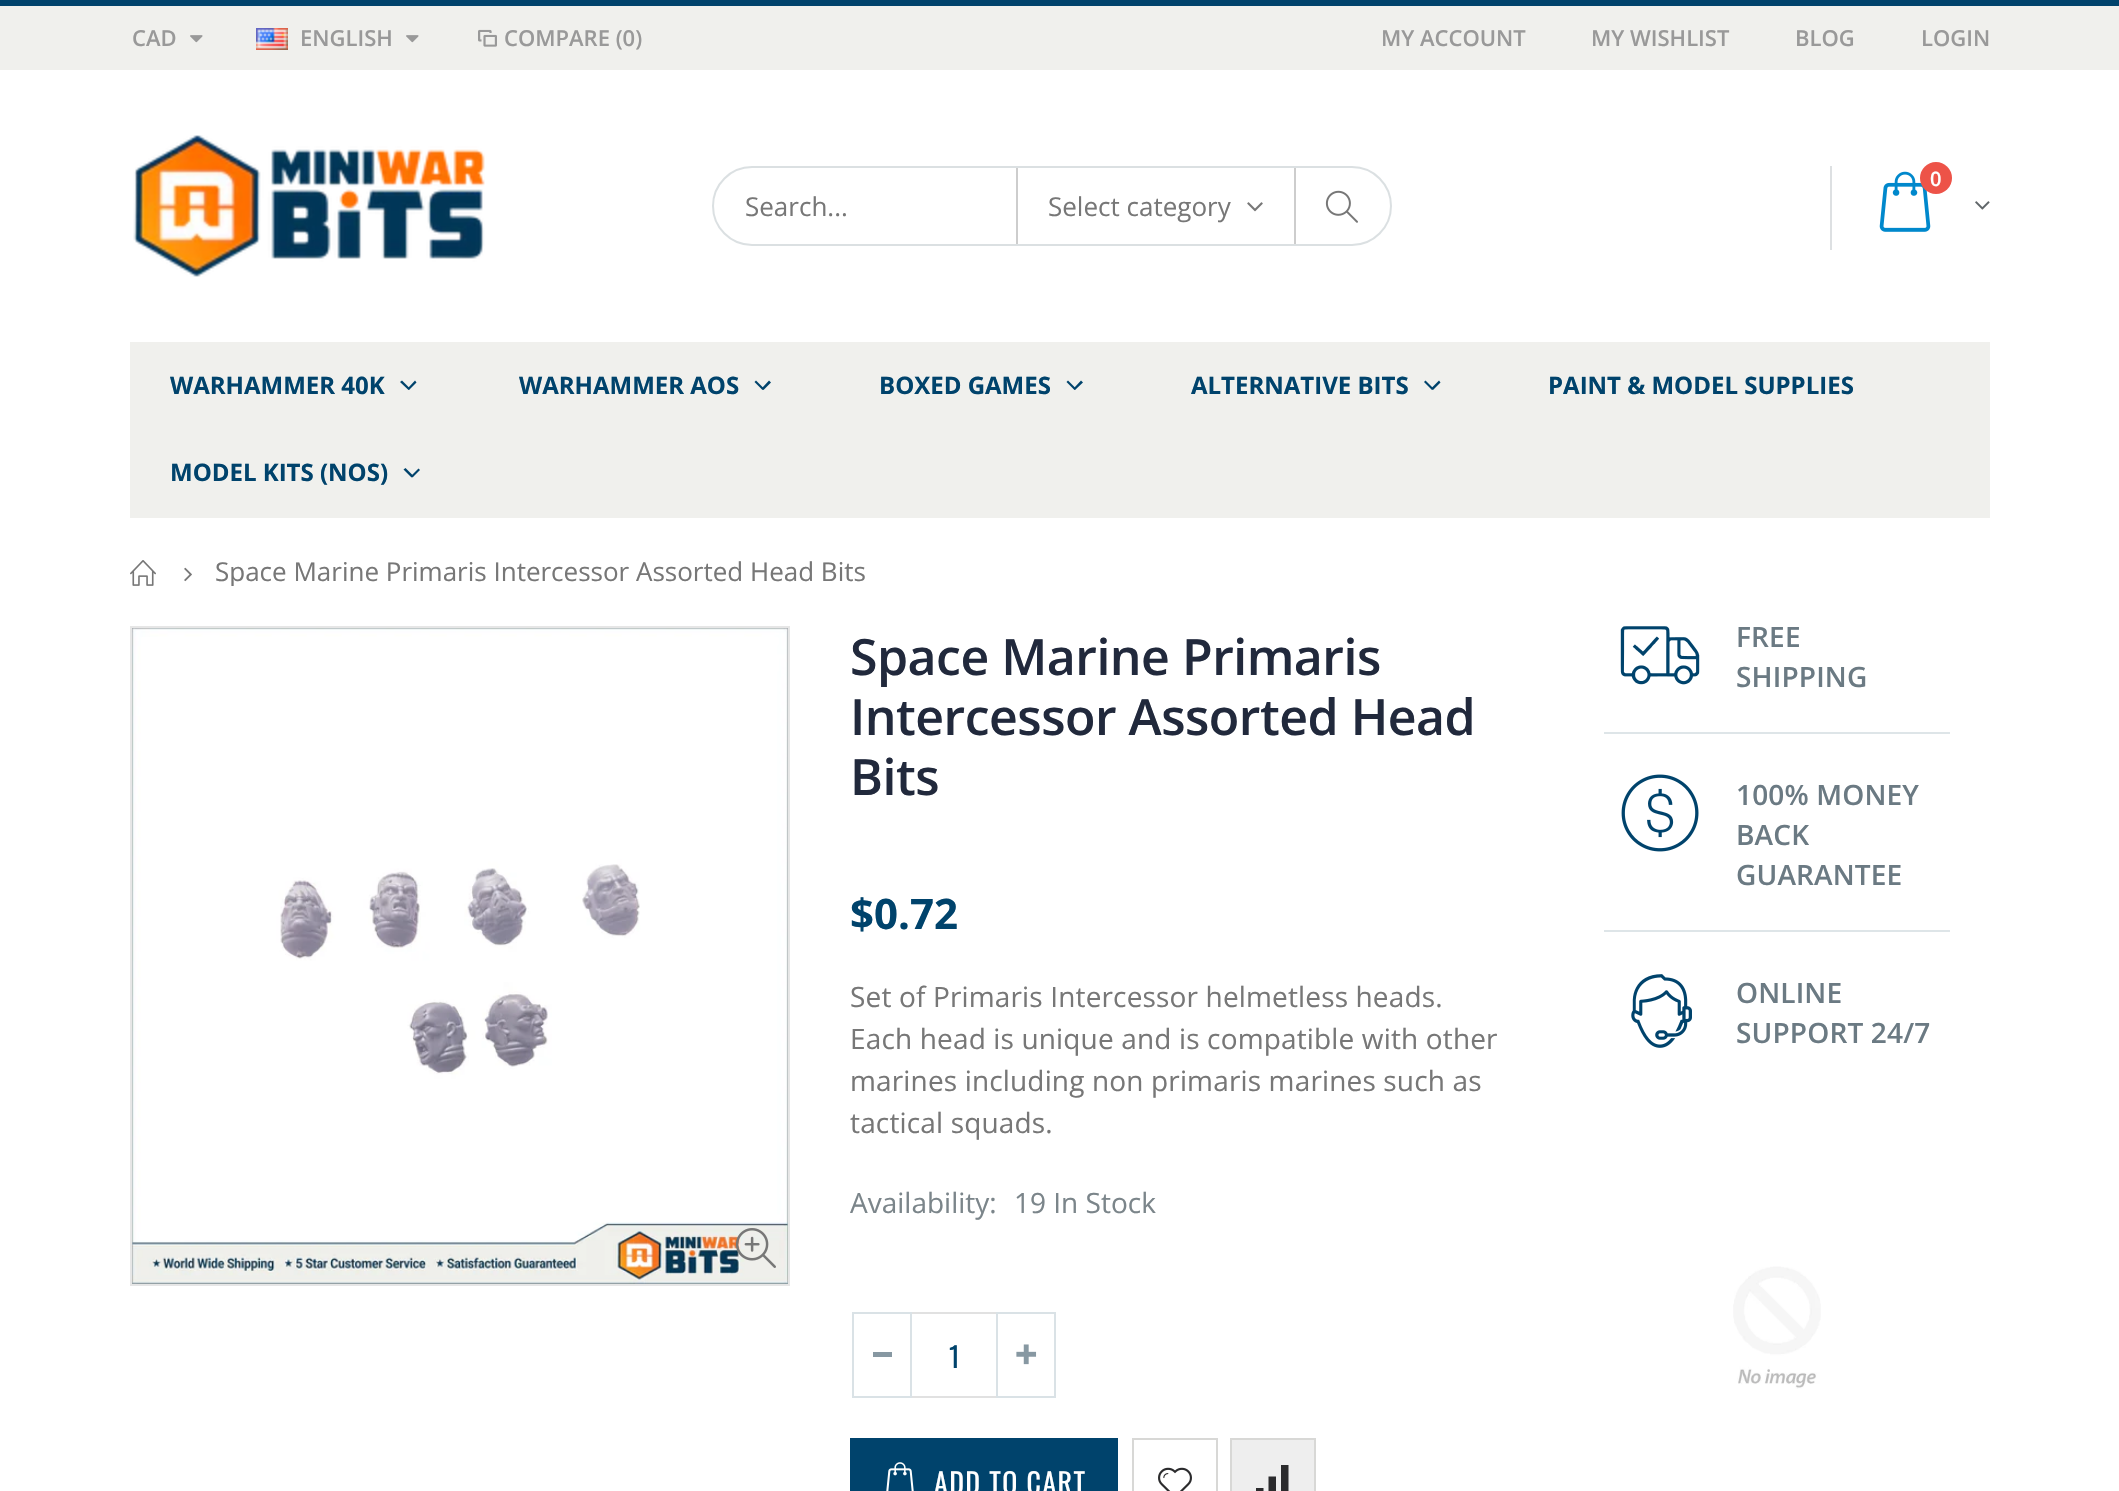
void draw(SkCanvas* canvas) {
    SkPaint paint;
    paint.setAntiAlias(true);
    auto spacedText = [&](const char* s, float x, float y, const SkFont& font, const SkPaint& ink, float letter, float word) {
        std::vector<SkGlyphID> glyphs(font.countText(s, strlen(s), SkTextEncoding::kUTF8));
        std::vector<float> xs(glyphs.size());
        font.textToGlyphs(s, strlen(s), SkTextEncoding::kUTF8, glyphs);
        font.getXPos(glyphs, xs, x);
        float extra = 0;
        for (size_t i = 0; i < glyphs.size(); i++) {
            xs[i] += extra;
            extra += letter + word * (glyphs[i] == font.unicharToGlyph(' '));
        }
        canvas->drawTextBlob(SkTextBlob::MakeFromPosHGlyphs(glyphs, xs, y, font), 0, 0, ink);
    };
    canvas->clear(0xFFFFFFFF);
    paint.setColor(0xFF00436C);
    canvas->drawRect(SkRect::MakeXYWH(0, 0, 2119, 6), paint);
    paint.setColor(0xFFF0F0ED);
    canvas->drawRect(SkRect::MakeXYWH(0, 6, 2119, 64), paint);
    SkFont font1(fontMgr->matchFamilyStyle("Open Sans", SkFontStyle(600, SkFontStyle::kNormal_Width, SkFontStyle::kUpright_Slant)), 22);
    font1.setSubpixel(true);
    paint.setColor(0xFF999999);
    canvas->drawString("CAD", 132, 46, font1, paint);
    canvas->drawImageRect(SkImages::DeferredFromEncodedData(SkData::MakeFromFileName("img1.png")), SkRect::MakeXYWH(190, 35, 13, 8), SkSamplingOptions());
    canvas->drawImageRect(SkImages::DeferredFromEncodedData(SkData::MakeFromFileName("img2.png")), SkRect::MakeXYWH(256, 28, 32, 22), SkSamplingOptions());
    canvas->drawString("ENGLISH", 300, 46, font1, paint);
    canvas->drawImageRect(SkImages::DeferredFromEncodedData(SkData::MakeFromFileName("img1.png")), SkRect::MakeXYWH(406, 35, 13, 8), SkSamplingOptions());
    canvas->drawImageRect(SkImages::DeferredFromEncodedData(SkData::MakeFromFileName("img3.png")), SkRect::MakeXYWH(478, 29, 19, 18), SkSamplingOptions());
    canvas->drawString("COMPARE (0)", 504, 46, font1, paint);
    canvas->drawString("MY ACCOUNT", 1381, 46, font1, paint);
    canvas->drawString("MY WISHLIST", 1591, 46, font1, paint);
    canvas->drawString("BLOG", 1795, 46, font1, paint);
    canvas->drawString("LOGIN", 1921, 46, font1, paint);
    canvas->drawImageRect(SkImages::DeferredFromEncodedData(SkData::MakeFromFileName("img4.png")), SkRect::MakeXYWH(133, 135, 352, 142), SkSamplingOptions());
    paint.setColor(0xFFDDE0E2);
    canvas->drawRect(SkRect::MakeXYWH(1830, 166, 2, 84), paint);
    canvas->drawImageRect(SkImages::DeferredFromEncodedData(SkData::MakeFromFileName("img5.png")), SkRect::MakeXYWH(1879, 171, 52, 61), SkSamplingOptions());
    paint.setColor(0xFFED5348);
    canvas->drawCircle(1936, 178, 16, paint);
    SkFont font2(fontMgr->matchFamilyStyle("Open Sans", SkFontStyle(600, SkFontStyle::kNormal_Width, SkFontStyle::kUpright_Slant)), 20);
    font2.setSubpixel(true);
    paint.setColor(0xFFFFFFFF);
    canvas->drawString("0", 1930, 186, font2, paint);
    canvas->drawImageRect(SkImages::DeferredFromEncodedData(SkData::MakeFromFileName("img6.png")), SkRect::MakeXYWH(1975, 201, 15, 9), SkSamplingOptions());
    paint.setStyle(SkPaint::kStroke_Style);
    paint.setStrokeWidth(2);
    paint.setColor(0xFFDBE0E2);
    canvas->drawRoundRect(SkRect::MakeXYWH(713, 167, 678, 78), 39, 39, paint);
    SkFont font3(fontMgr->matchFamilyStyle("Open Sans", SkFontStyle::Normal()), 26);
    font3.setSubpixel(true);
    paint.setStyle(SkPaint::kFill_Style);
    paint.setColor(0xFF777777);
    canvas->drawString("Search...", 745, 216, font3, paint);
    paint.setColor(0xFFCDCDCD);
    canvas->drawRect(SkRect::MakeXYWH(1294, 168, 2, 76), paint);
    canvas->drawRect(SkRect::MakeXYWH(1016, 168, 2, 76), paint);
    paint.setColor(0xFF777777);
    canvas->drawString("Select category", 1048, 216, font3, paint);
    canvas->drawImageRect(SkImages::DeferredFromEncodedData(SkData::MakeFromFileName("img7.png")), SkRect::MakeXYWH(1247, 202, 16, 10), SkSamplingOptions());
    canvas->drawImageRect(SkImages::DeferredFromEncodedData(SkData::MakeFromFileName("img8.png")), SkRect::MakeXYWH(1325, 190, 33, 33), SkSamplingOptions());
    paint.setColor(0xFFF0F0ED);
    canvas->drawRect(SkRect::MakeXYWH(130, 342, 1860, 176), paint);
    SkFont font4(fontMgr->matchFamilyStyle("Open Sans", SkFontStyle::Bold()), 24);
    font4.setSubpixel(true);
    paint.setColor(0xFF00436C);
    canvas->drawString("WARHAMMER 40K", 170, 394, font4, paint);
    canvas->drawPath(SkPathBuilder().moveTo(415, 380.5f).lineTo(416.5f, 382.5f).lineTo(409, 390).lineTo(407.5f, 388.5f).close().detach(), paint);
    canvas->drawPath(SkPathBuilder().moveTo(402, 380.5f).lineTo(410, 388.5f).lineTo(408.5f, 390).lineTo(400, 382).close().detach(), paint);
    canvas->drawString("WARHAMMER AOS", 519, 394, font4, paint);
    canvas->drawPath(SkPathBuilder().moveTo(769, 380.5f).lineTo(771, 382.5f).lineTo(763.5f, 390).lineTo(761.5f, 388.5f).close().detach(), paint);
    canvas->drawPath(SkPathBuilder().moveTo(756, 380.5f).lineTo(764, 388.5f).lineTo(762.5f, 390).lineTo(754.5f, 382).close().detach(), paint);
    canvas->drawString("BOXED GAMES", 879, 394, font4, paint);
    canvas->drawPath(SkPathBuilder().moveTo(1081, 380.5f).lineTo(1083, 382.5f).lineTo(1075, 390).lineTo(1073.5f, 388.5f).close().detach(), paint);
    canvas->drawPath(SkPathBuilder().moveTo(1068, 380.5f).lineTo(1076, 388.5f).lineTo(1074.5f, 390).lineTo(1066.5f, 382).close().detach(), paint);
    canvas->drawString("ALTERNATIVE BITS", 1191, 394, font4, paint);
    canvas->drawPath(SkPathBuilder().moveTo(1439, 380.5f).lineTo(1440.5f, 382.5f).lineTo(1433, 390).lineTo(1431, 388.5f).close().detach(), paint);
    canvas->drawPath(SkPathBuilder().moveTo(1425.5f, 380.5f).lineTo(1433.5f, 388.5f).lineTo(1432, 390).lineTo(1424, 382).close().detach(), paint);
    canvas->drawString("PAINT & MODEL SUPPLIES", 1548, 394, font4, paint);
    canvas->drawString("MODEL KITS (NOS)", 170, 481, font4, paint);
    canvas->drawPath(SkPathBuilder().moveTo(418.5f, 468.5f).lineTo(420, 470).lineTo(412.5f, 477.5f).lineTo(411, 476).close().detach(), paint);
    canvas->drawPath(SkPathBuilder().moveTo(405.5f, 468).lineTo(413.5f, 476).lineTo(411.5f, 477.5f).lineTo(403.5f, 469.5f).close().detach(), paint);
    canvas->drawImageRect(SkImages::DeferredFromEncodedData(SkData::MakeFromFileName("img9.png")), SkRect::MakeXYWH(130, 560, 26, 26), SkSamplingOptions());
    canvas->drawImageRect(SkImages::DeferredFromEncodedData(SkData::MakeFromFileName("img10.png")), SkRect::MakeXYWH(184, 567, 8, 15), SkSamplingOptions());
    canvas->save();
    canvas->clipRect(SkRect::MakeXYWH(130, 558, 1860, 28));
    paint.setColor(0xFF777777);
    canvas->drawString("Space Marine Primaris Intercessor Assorted Head Bits", 215, 581, font3, paint);
    canvas->restore();
    paint.setStyle(SkPaint::kStroke_Style);
    paint.setColor(0xFFE6E6E6);
    canvas->drawRect(SkRect::MakeXYWH(131, 627, 658, 658), paint);
    canvas->drawImageRect(SkImages::DeferredFromEncodedData(SkData::MakeFromFileName("img11.png")), SkRect::MakeXYWH(132, 628, 656, 656), SkSamplingOptions());
    canvas->drawImageRect(SkImages::DeferredFromEncodedData(SkData::MakeFromFileName("img12.png")), SkRect::MakeXYWH(735, 1228, 41, 40), SkSamplingOptions());
    SkFont font5(fontMgr->matchFamilyStyle("Open Sans", SkFontStyle(600, SkFontStyle::kNormal_Width, SkFontStyle::kUpright_Slant)), 50);
    font5.setSubpixel(true);
    paint.setStyle(SkPaint::kFill_Style);
    paint.setColor(0xFF21293C);
    spacedText("Space Marine Primaris", 850, 675, font5, paint, -0.5f, 0);
    spacedText("Intercessor Assorted Head", 850, 735, font5, paint, -0.5f, 0);
    spacedText("Bits", 850, 795, font5, paint, -0.5f, 0);
    SkFont font6(fontMgr->matchFamilyStyle("Open Sans", SkFontStyle::Bold()), 42);
    font6.setSubpixel(true);
    paint.setColor(0xFF00436C);
    canvas->drawString("$0.72", 850, 929, font6, paint);
    SkFont font7(fontMgr->matchFamilyStyle("Open Sans", SkFontStyle::Normal()), 28);
    font7.setSubpixel(true);
    paint.setColor(0xFF777777);
    spacedText("Set of Primaris Intercessor helmetless heads.", 850, 1007, font7, paint, 0.15f, 0);
    spacedText("Each head is unique and is compatible with other", 850, 1049, font7, paint, 0.15f, 0);
    spacedText("marines including non primaris marines such as", 850, 1091, font7, paint, 0.15f, 0);
    spacedText("tactical squads.", 850, 1133, font7, paint, 0.15f, 0);
    paint.setColor(0xFF7B858A);
    canvas->drawString("Availability:", 850, 1213, font7, paint);
    canvas->drawString("19 In Stock", 1014, 1213, font7, paint);
    paint.setStyle(SkPaint::kStroke_Style);
    paint.setColor(0xFFE1E1E1);
    canvas->drawRect(SkRect::MakeXYWH(911, 1313, 86, 84), paint);
    paint.setColor(0xFFDAE2E6);
    canvas->drawRect(SkRect::MakeXYWH(853, 1313, 58, 84), paint);
    paint.setStyle(SkPaint::kFill_Style);
    paint.setColor(0xFF8798A2);
    canvas->drawRect(SkRect::MakeXYWH(873, 1352, 19, 5), paint);
    paint.setStyle(SkPaint::kStroke_Style);
    paint.setColor(0xFFDAE2E6);
    canvas->drawRect(SkRect::MakeXYWH(997, 1313, 58, 84), paint);
    canvas->drawImageRect(SkImages::DeferredFromEncodedData(SkData::MakeFromFileName("img13.png")), SkRect::MakeXYWH(1016, 1344, 21, 21), SkSamplingOptions());
    SkFont font8(fontMgr->matchFamilyStyle("Oswald", SkFontStyle::Normal()), 28);
    font8.setSubpixel(true);
    paint.setStyle(SkPaint::kFill_Style);
    paint.setColor(0xFF00436C);
    canvas->drawString("1", 949, 1368, font8, paint);
    canvas->drawRect(SkRect::MakeXYWH(850, 1438, 268, 53), paint);
    canvas->drawImageRect(SkImages::DeferredFromEncodedData(SkData::MakeFromFileName("img14.png")), SkRect::MakeXYWH(886, 1462, 28, 29), SkSamplingOptions());
    paint.setColor(0xFFFFFFFF);
    spacedText("ADD TO CART", 934, 1494, font8, paint, 1.4f, 0);
    paint.setStyle(SkPaint::kStroke_Style);
    paint.setColor(0xFFD8D8D6);
    canvas->drawRect(SkRect::MakeXYWH(1133, 1439, 84, 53), paint);
    canvas->drawImageRect(SkImages::DeferredFromEncodedData(SkData::MakeFromFileName("img15.png")), SkRect::MakeXYWH(1158, 1467, 34, 24), SkSamplingOptions());
    paint.setStyle(SkPaint::kFill_Style);
    paint.setColor(0xFFEEEEEE);
    canvas->drawRect(SkRect::MakeXYWH(1231, 1439, 84, 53), paint);
    paint.setStyle(SkPaint::kStroke_Style);
    paint.setColor(0xFFD8D8D6);
    canvas->drawRect(SkRect::MakeXYWH(1231, 1439, 84, 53), paint);
    paint.setStyle(SkPaint::kFill_Style);
    paint.setColor(0xFF2B2B2D);
    canvas->drawPath(SkPathBuilder().moveTo(1263.5f, 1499).lineTo(1256, 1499).lineTo(1256, 1488).lineTo(1263.5f, 1488).close().moveTo(1276, 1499).lineTo(1268.5f, 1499).lineTo(1268.5f, 1476.5f).lineTo(1276, 1476.5f).close().moveTo(1281, 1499).lineTo(1281, 1465).lineTo(1288.5f, 1465).lineTo(1288.5f, 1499).close().detach(), paint);
    paint.setColor(0xFFDEE5E8);
    canvas->drawRect(SkRect::MakeXYWH(1604, 732, 346, 2), paint);
    canvas->drawImageRect(SkImages::DeferredFromEncodedData(SkData::MakeFromFileName("img16.png")), SkRect::MakeXYWH(1620, 626, 80, 59), SkSamplingOptions());
    SkFont font9(fontMgr->matchFamilyStyle("Open Sans", SkFontStyle(600, SkFontStyle::kNormal_Width, SkFontStyle::kUpright_Slant)), 28);
    font9.setSubpixel(true);
    paint.setColor(0xFF6B7A83);
    spacedText("FREE", 1736, 647, font9, paint, 0.15f, 0);
    spacedText("SHIPPING", 1736, 687, font9, paint, 0.15f, 0);
    paint.setColor(0xFFDEE5E8);
    canvas->drawRect(SkRect::MakeXYWH(1604, 930, 346, 2), paint);
    canvas->drawImageRect(SkImages::DeferredFromEncodedData(SkData::MakeFromFileName("img17.png")), SkRect::MakeXYWH(1621, 774, 78, 78), SkSamplingOptions());
    paint.setColor(0xFF6B7A83);
    spacedText("100% MONEY", 1736, 805, font9, paint, 0.15f, 0);
    spacedText("BACK", 1736, 845, font9, paint, 0.15f, 0);
    spacedText("GUARANTEE", 1736, 885, font9, paint, 0.15f, 0);
    canvas->drawImageRect(SkImages::DeferredFromEncodedData(SkData::MakeFromFileName("img18.png")), SkRect::MakeXYWH(1631, 974, 61, 74), SkSamplingOptions());
    spacedText("ONLINE", 1736, 1003, font9, paint, 0.15f, 0);
    spacedText("SUPPORT 24/7", 1736, 1043, font9, paint, 0.15f, 0);
    canvas->drawImageRect(SkImages::DeferredFromEncodedData(SkData::MakeFromFileName("img19.png")), SkRect::MakeXYWH(1733, 1266, 88, 123), SkSamplingOptions());
}
